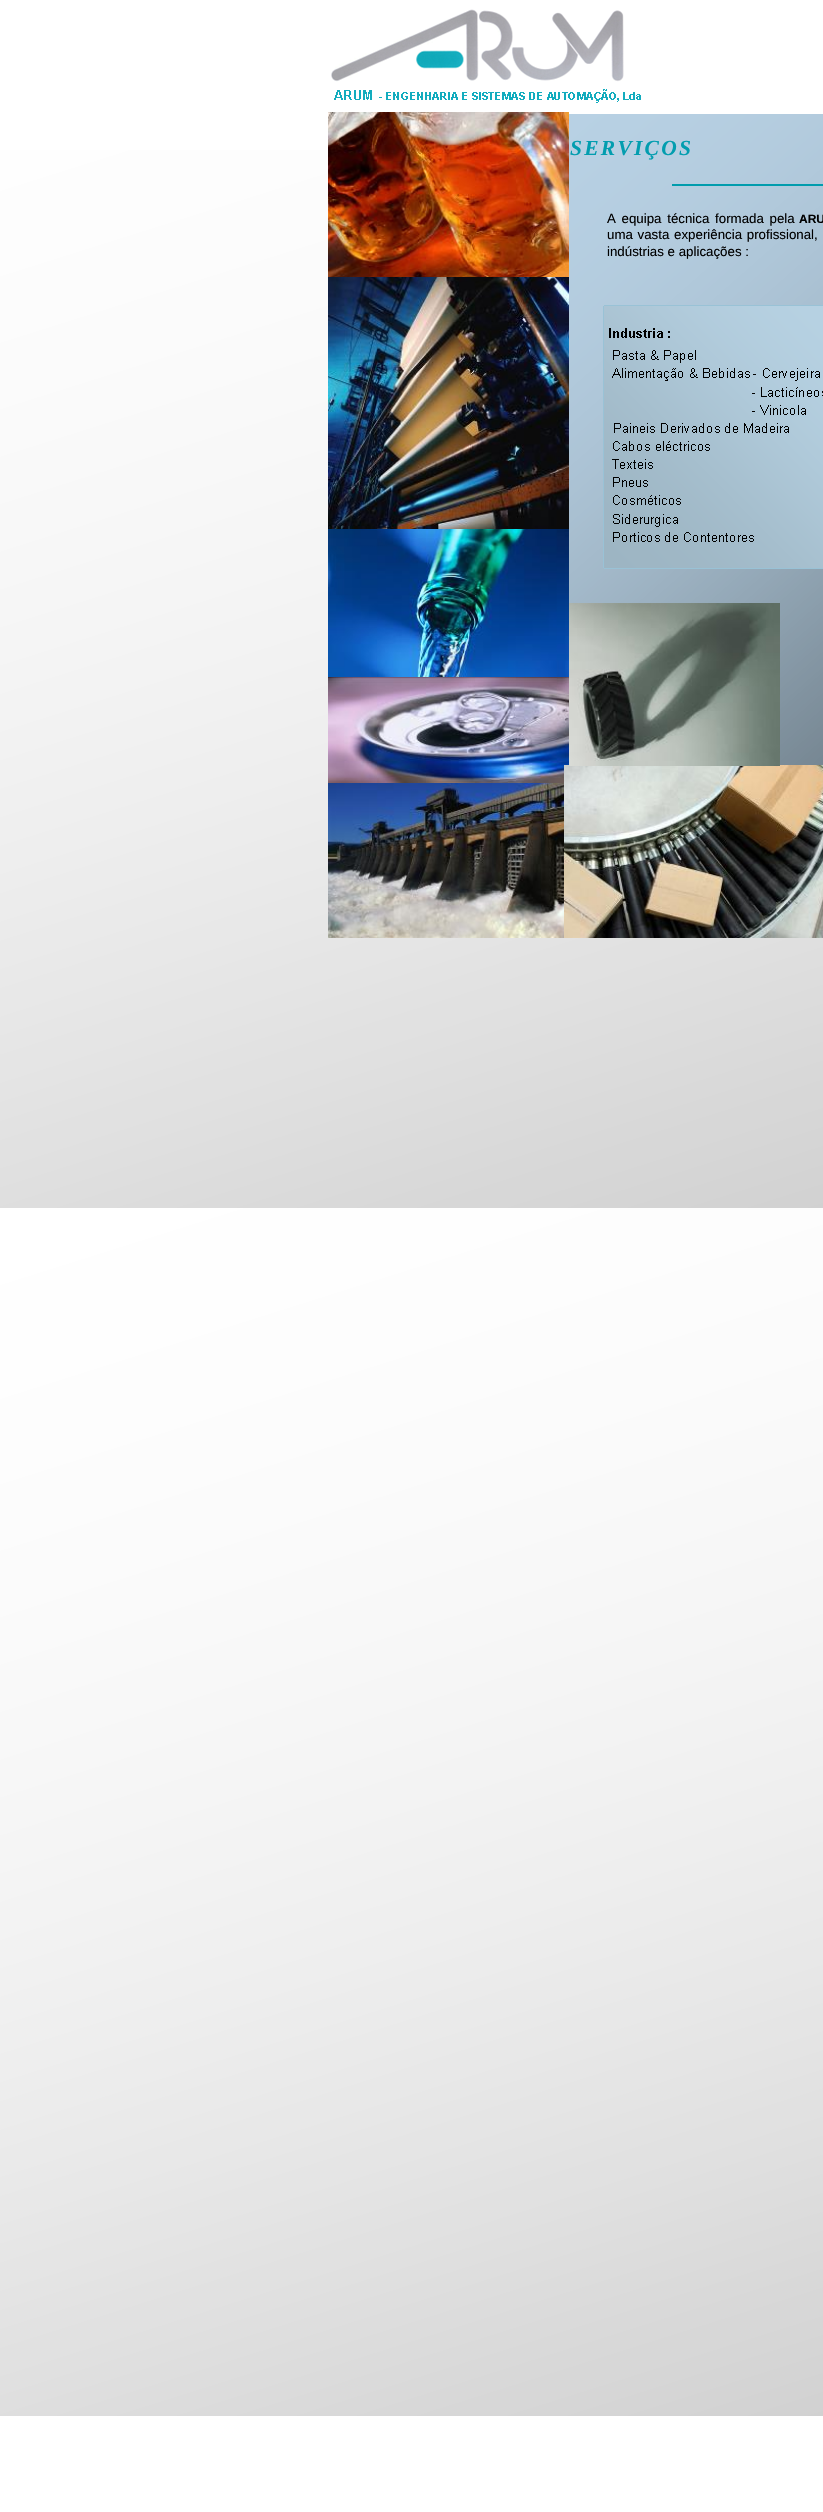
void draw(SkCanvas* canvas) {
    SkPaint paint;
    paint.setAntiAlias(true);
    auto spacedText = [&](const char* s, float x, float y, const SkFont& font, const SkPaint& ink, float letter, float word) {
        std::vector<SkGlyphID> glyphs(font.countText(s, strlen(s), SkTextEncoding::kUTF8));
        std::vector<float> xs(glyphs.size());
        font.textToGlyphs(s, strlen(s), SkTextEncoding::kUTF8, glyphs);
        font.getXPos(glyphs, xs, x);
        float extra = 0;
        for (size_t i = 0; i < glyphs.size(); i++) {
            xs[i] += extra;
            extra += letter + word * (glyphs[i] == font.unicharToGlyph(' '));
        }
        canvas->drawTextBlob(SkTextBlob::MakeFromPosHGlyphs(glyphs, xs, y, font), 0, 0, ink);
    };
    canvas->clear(0xFFFFFFFF);
    canvas->drawImageRect(SkImages::DeferredFromEncodedData(SkData::MakeFromFileName("img1.png")), SkRect::MakeXYWH(0, 150, 823, 2266), SkSamplingOptions());
    canvas->drawImageRect(SkImages::DeferredFromEncodedData(SkData::MakeFromFileName("img2.png")), SkRect::MakeXYWH(331, 9, 310, 94), SkSamplingOptions());
    canvas->drawImageRect(SkImages::DeferredFromEncodedData(SkData::MakeFromFileName("img3.png")), SkRect::MakeXYWH(328, 112, 241, 165), SkSamplingOptions());
    canvas->drawImageRect(SkImages::DeferredFromEncodedData(SkData::MakeFromFileName("img4.png")), SkRect::MakeXYWH(569, 114, 254, 651), SkSamplingOptions());
    SkFont font1(fontMgr->matchFamilyStyle("Liberation Serif", SkFontStyle::BoldItalic()), 21.5f);
    font1.setSubpixel(true);
    paint.setColor(0xFF029DAF);
    spacedText("SERVIÇOS", 570, 155, font1, paint, 2.25f, 0);
    paint.setColor(0xFF019CAD);
    canvas->drawRect(SkRect::MakeXYWH(672, 184, 151, 2), paint);
    SkFont font2(fontMgr->matchFamilyStyle("Liberation Sans", SkFontStyle::Normal()), 13.3f);
    font2.setSubpixel(true);
    paint.setColor(0xFF000000);
    spacedText("A equipa técnica formada pela", 607, 223, font2, paint, 0, 2);
    SkFont font3(fontMgr->matchFamilyStyle("Liberation Sans", SkFontStyle::Bold()), 12);
    font3.setSubpixel(true);
    canvas->drawString("ARU", 799, 223, font3, paint);
    spacedText("uma vasta experiência profissional,", 607, 239, font2, paint, 0, 1);
    canvas->drawString("indústrias e aplicações :", 607, 256, font2, paint);
    canvas->drawImageRect(SkImages::DeferredFromEncodedData(SkData::MakeFromFileName("img5.png")), SkRect::MakeXYWH(328, 277, 241, 252), SkSamplingOptions());
    canvas->drawImageRect(SkImages::DeferredFromEncodedData(SkData::MakeFromFileName("img6.png")), SkRect::MakeXYWH(603, 305, 220, 264), SkSamplingOptions());
    canvas->drawImageRect(SkImages::DeferredFromEncodedData(SkData::MakeFromFileName("img7.png")), SkRect::MakeXYWH(328, 529, 241, 148), SkSamplingOptions());
    canvas->drawImageRect(SkImages::DeferredFromEncodedData(SkData::MakeFromFileName("img9.png")), SkRect::MakeXYWH(328, 677, 241, 106), SkSamplingOptions());
    canvas->drawImageRect(SkImages::DeferredFromEncodedData(SkData::MakeFromFileName("img11.png")), SkRect::MakeXYWH(564, 765, 259, 173), SkSamplingOptions());
    canvas->drawImageRect(SkImages::DeferredFromEncodedData(SkData::MakeFromFileName("img8.png")), SkRect::MakeXYWH(569, 603, 211, 163), SkSamplingOptions());
    canvas->drawImageRect(SkImages::DeferredFromEncodedData(SkData::MakeFromFileName("img10.png")), SkRect::MakeXYWH(328, 783, 236, 155), SkSamplingOptions());
}
